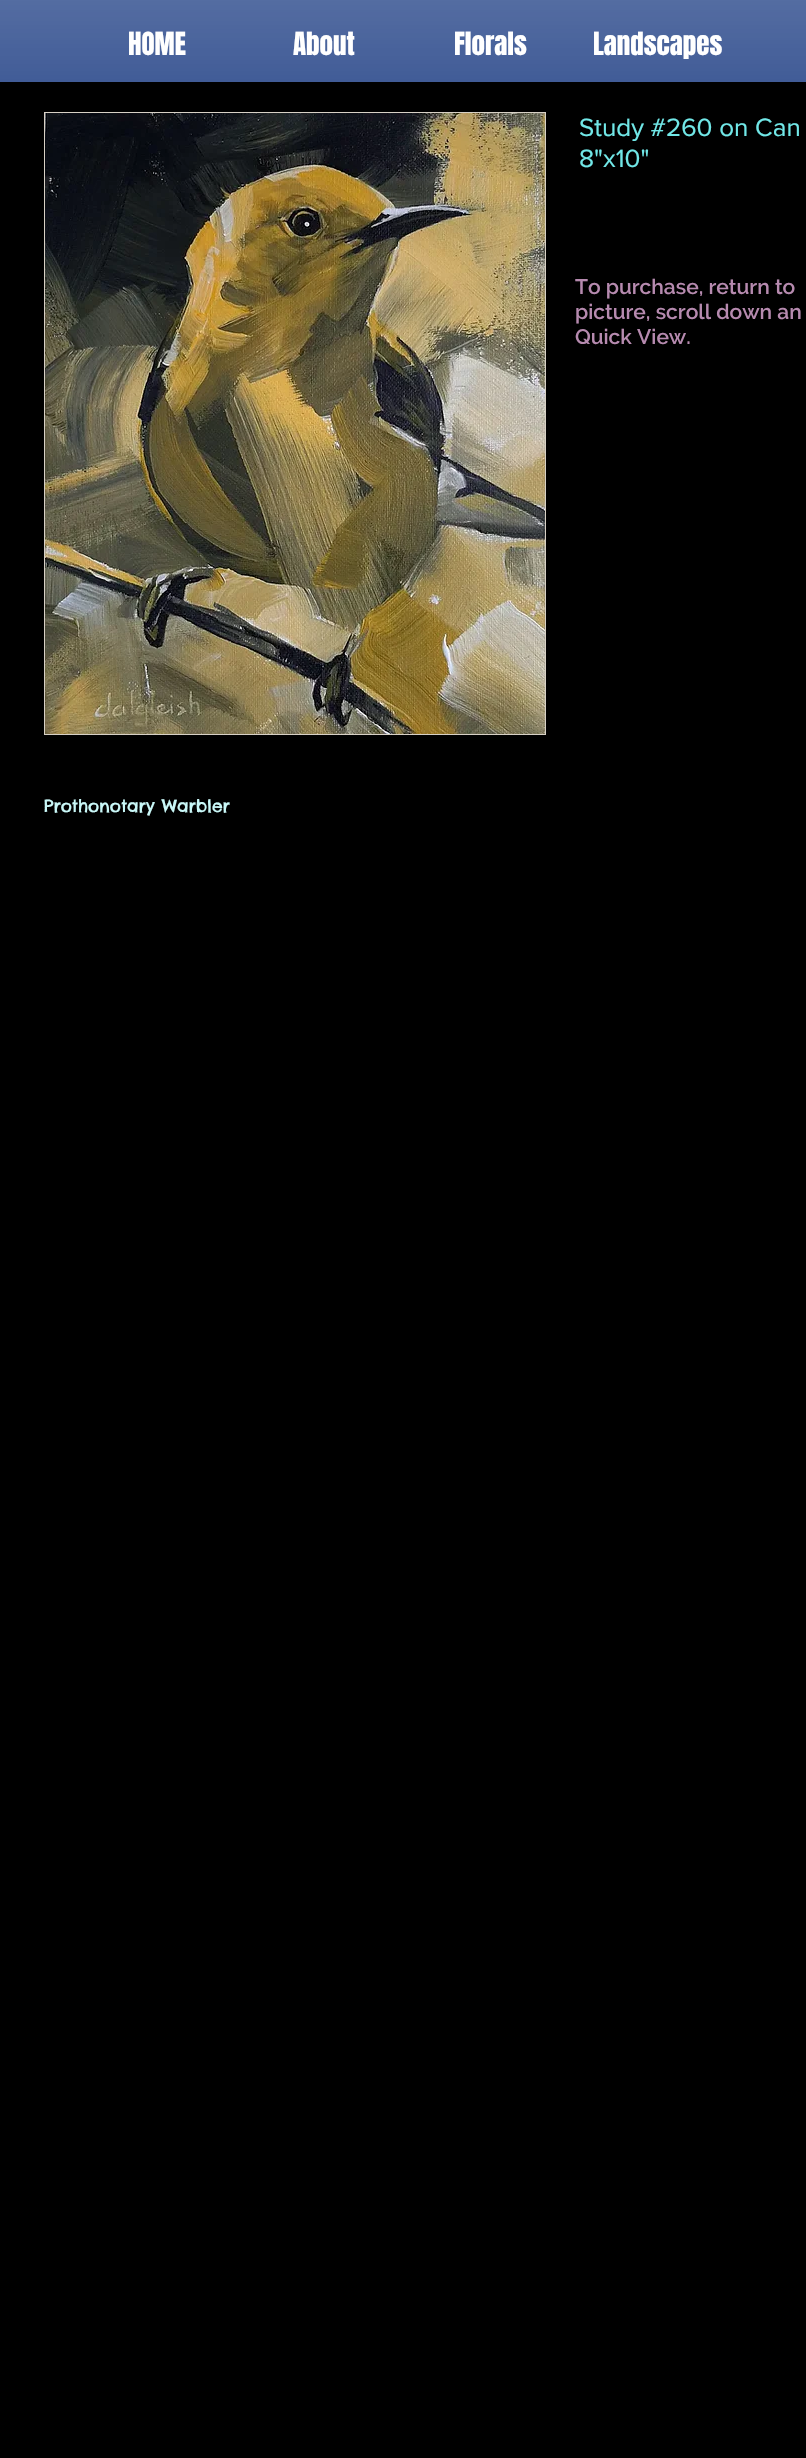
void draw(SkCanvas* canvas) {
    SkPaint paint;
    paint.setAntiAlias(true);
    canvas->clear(0xFF000000);
    paint.setColor(0xFF183981);
    canvas->drawRect(SkRect::MakeXYWH(0, 0, 806, 82), paint);
    canvas->drawImageRect(SkImages::DeferredFromEncodedData(SkData::MakeFromFileName("img1.png")), SkRect::MakeXYWH(0, 0, 806, 82), SkSamplingOptions());
    SkFont font1(fontMgr->matchFamilyStyle("Anton", SkFontStyle::Normal()), 27);
    font1.setSubpixel(true);
    paint.setColor(0xFFFFFFFF);
    canvas->drawString("HOME", 128, 55, font1, paint);
    canvas->drawString("About", 293, 55, font1, paint);
    canvas->drawString("Florals", 454, 55, font1, paint);
    canvas->drawString("Landscapes", 593, 55, font1, paint);
    SkFont font2(fontMgr->matchFamilyStyle("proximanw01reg", SkFontStyle::Normal()), 26);
    font2.setSubpixel(true);
    paint.setColor(0xFF71E8E8);
    canvas->drawString("Study #260 on Can", 579, 136, font2, paint);
    canvas->drawString("8\"x10\"", 579, 167, font2, paint);
    paint.setStyle(SkPaint::kStroke_Style);
    paint.setStrokeWidth(1);
    paint.setColor(0xFFD8D1C6);
    canvas->drawRect(SkRect::MakeXYWH(44.5f, 112.5f, 501, 622), paint);
    canvas->drawImageRect(SkImages::DeferredFromEncodedData(SkData::MakeFromFileName("img2.png")), SkRect::MakeXYWH(45, 113, 500, 621), SkSamplingOptions());
    SkFont font3(fontMgr->matchFamilyStyle("Chelsea Market", SkFontStyle::Normal()), 17);
    font3.setSubpixel(true);
    paint.setStyle(SkPaint::kFill_Style);
    paint.setColor(0xFFC9F8F8);
    canvas->drawString("Prothonotary Warbler", 44, 812, font3, paint);
    SkFont font4(fontMgr->matchFamilyStyle("Raleway", SkFontStyle(600, SkFontStyle::kNormal_Width, SkFontStyle::kUpright_Slant)), 21);
    font4.setSubpixel(true);
    paint.setColor(0xFFB68AAF);
    canvas->drawString("To purchase, return to", 575, 294, font4, paint);
    canvas->drawString("picture, scroll down an", 575, 319, font4, paint);
    canvas->drawString("Quick View.", 575, 344, font4, paint);
}
